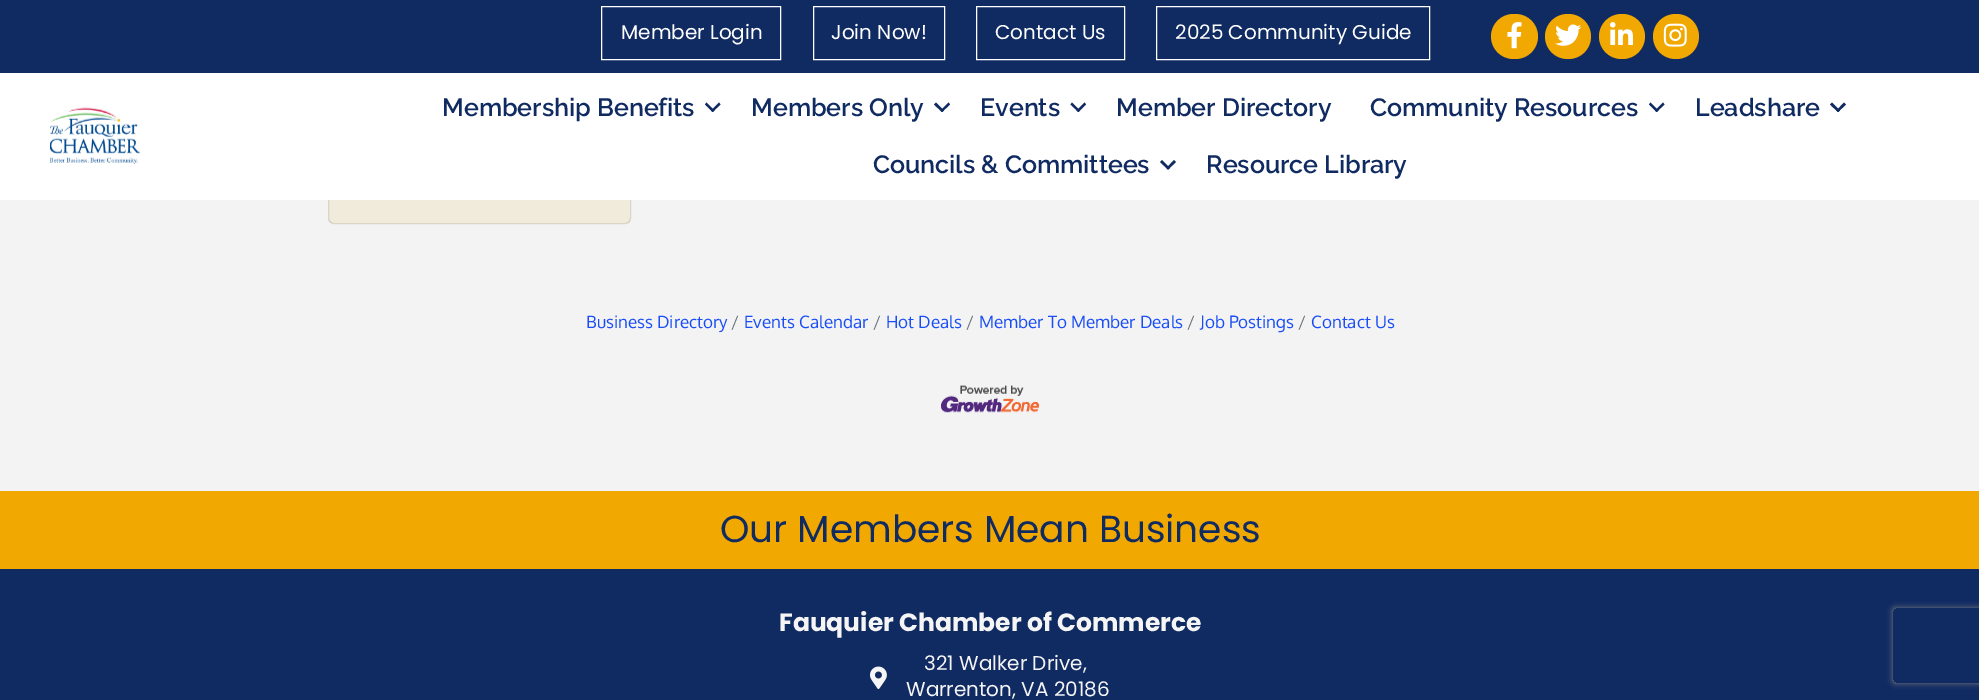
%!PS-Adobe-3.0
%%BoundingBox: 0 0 1979 700
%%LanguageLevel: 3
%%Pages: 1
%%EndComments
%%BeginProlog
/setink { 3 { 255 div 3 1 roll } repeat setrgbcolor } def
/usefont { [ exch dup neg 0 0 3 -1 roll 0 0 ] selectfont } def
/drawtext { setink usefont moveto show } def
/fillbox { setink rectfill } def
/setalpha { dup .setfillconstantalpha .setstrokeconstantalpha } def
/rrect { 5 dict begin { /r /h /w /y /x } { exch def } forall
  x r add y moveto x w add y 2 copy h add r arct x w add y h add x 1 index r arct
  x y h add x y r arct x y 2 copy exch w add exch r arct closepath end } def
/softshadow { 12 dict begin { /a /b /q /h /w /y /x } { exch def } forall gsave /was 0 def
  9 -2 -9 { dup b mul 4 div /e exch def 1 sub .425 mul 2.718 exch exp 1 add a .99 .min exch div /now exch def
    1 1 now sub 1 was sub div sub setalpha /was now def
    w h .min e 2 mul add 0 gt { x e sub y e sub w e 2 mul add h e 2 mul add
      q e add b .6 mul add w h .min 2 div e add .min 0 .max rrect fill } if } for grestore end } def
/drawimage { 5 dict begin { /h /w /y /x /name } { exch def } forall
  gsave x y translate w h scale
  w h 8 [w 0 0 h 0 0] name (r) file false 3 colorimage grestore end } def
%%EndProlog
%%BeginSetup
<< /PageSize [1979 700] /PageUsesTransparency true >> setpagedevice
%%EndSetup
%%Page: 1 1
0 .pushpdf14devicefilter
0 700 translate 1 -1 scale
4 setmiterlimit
0 0 1979 700 243 243 243 fillbox
248 243 226 setink
328 -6 303 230 6 rrect fill
0.12 setalpha
0 0 0 setink
328.5 -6.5 302 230 5.5 rrect stroke
1 setalpha
0 0 1979 73 16 42 98 fillbox
255 255 255 setink
601.5 6.5 179 53 rectstroke
(Member Login) 621 39 /Poppins-Regular 20 255 255 255 drawtext
813.5 6.5 131 53 rectstroke
(Join Now!) 831 39 /Poppins-Regular 20 255 255 255 drawtext
976.5 6.5 148 53 rectstroke
(Contact Us) 995 39 /Poppins-Regular 20 255 255 255 drawtext
1156.5 6.5 273 53 rectstroke
(2025 Community Guide) 1175 39 /Poppins-Regular 20 255 255 255 drawtext
241 168 0 setink
1491 14 47 45 22.5 rrect fill
(assets/img1.rgb) 1507 22 15 27 drawimage
1545 14 46 45 22.5 rrect fill
(assets/img2.rgb) 1555 24 27 22 drawimage
1599 14 46 45 22.5 rrect fill
(assets/img3.rgb) 1610 22 23 23 drawimage
1653 14 46 45 22.5 rrect fill
(assets/img4.rgb) 1663 23 24 24 drawimage
0 73 1979 127 255 255 255 fillbox
(assets/img5.rgb) 50 107 90 57 drawimage
(Membership Benefits) 442 116 /Raleway-SemiBold 25 16 42 98 drawtext
719 102.5 moveto 720.5 104.5 lineto 712.5 112 lineto 711 110.5 lineto closepath fill
706.5 102.5 moveto 714.5 110.5 lineto 712.5 112 lineto 705 104.5 lineto closepath fill
(Members Only) 751 116 /Raleway-SemiBold 25 16 42 98 drawtext
948.5 102.5 moveto 950 104.5 lineto 942 112 lineto 940.5 110.5 lineto closepath fill
936 102.5 moveto 944 110.5 lineto 942 112 lineto 934 104.5 lineto closepath fill
(Events) 980 116 /Raleway-SemiBold 25 16 42 98 drawtext
1084.5 102.5 moveto 1086 104.5 lineto 1078.5 112 lineto 1076.5 110.5 lineto closepath fill
1072 102.5 moveto 1080 110.5 lineto 1078.5 112 lineto 1070.5 104.5 lineto closepath fill
(Member Directory) 1116 116 /Raleway-SemiBold 25 16 42 98 drawtext
(Community Resources) 1370 116 /Raleway-SemiBold 25 16 42 98 drawtext
1663 102.5 moveto 1664.5 104.5 lineto 1656.5 112 lineto 1655 110.5 lineto closepath fill
1650.5 102.5 moveto 1658.5 110.5 lineto 1656.5 112 lineto 1649 104.5 lineto closepath fill
(Leadshare) 1695 116 /Raleway-SemiBold 25 16 42 98 drawtext
1844 102.5 moveto 1846 104.5 lineto 1838 112 lineto 1836.5 110.5 lineto closepath fill
1832 102.5 moveto 1840 110.5 lineto 1838 112 lineto 1830 104.5 lineto closepath fill
(Councils & Committees) 873 173 /Raleway-SemiBold 25 16 42 98 drawtext
1174 160 moveto 1176 162 lineto 1168 169.5 lineto 1166.5 168 lineto closepath fill
1162 160 moveto 1170 168 lineto 1168 169.5 lineto 1160 162 lineto closepath fill
(Resource Library) 1206 173 /Raleway-SemiBold 25 16 42 98 drawtext
0.03 setalpha
329 200 301 23 0 0 0 fillbox
1 setalpha
(Business Directory) 586 328 /Oxygen-Regular 17 25 77 245 drawtext
(/) 731 328 /Oxygen-Regular 17 108 117 125 drawtext
(Events Calendar) 744 328 /Oxygen-Regular 17 25 77 245 drawtext
(/) 873 328 /Oxygen-Regular 17 108 117 125 drawtext
(Hot Deals) 886 328 /Oxygen-Regular 17 25 77 245 drawtext
(/) 966 328 /Oxygen-Regular 17 108 117 125 drawtext
(Member To Member Deals) 979 328 /Oxygen-Regular 17 25 77 245 drawtext
(/) 1187 328 /Oxygen-Regular 17 108 117 125 drawtext
(Job Postings) 1200 328 /Oxygen-Regular 17 25 77 245 drawtext
(/) 1298 328 /Oxygen-Regular 17 108 117 125 drawtext
(Contact Us) 1311 328 /Oxygen-Regular 17 25 77 245 drawtext
(assets/img6.rgb) 941 385 98 28 drawimage
0 491 1979 78 241 168 0 fillbox
(Our Members Mean Business) 720 542 /Poppins-Regular 37.5 16 42 98 drawtext
0 569 1979 131 16 42 98 fillbox
(Fauquier Chamber of Commerce) 779 631 /Poppins-Bold 25 245 245 245 drawtext
(assets/img7.rgb) 870 666 17 23 drawimage
(321 Walker Drive,) 924 670 /Poppins-Regular 20 245 245 245 drawtext
(Warrenton, VA 20186) 906 696 /Poppins-Regular 20 245 245 245 drawtext
gsave
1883 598 moveto 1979 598 lineto 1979 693 lineto 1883 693 lineto closepath 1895.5 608 moveto 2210.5 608 lineto 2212 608 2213 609 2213 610.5 curveto 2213 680.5 lineto 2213 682 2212 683 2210.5 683 curveto 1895.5 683 lineto 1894 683 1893 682 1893 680.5 curveto 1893 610.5 lineto 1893 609 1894 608 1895.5 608 curveto closepath eoclip newpath
128 128 128 setink
1893 608 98 75 2.5 3 1 softshadow
grestore
.poppdf14devicefilter showpage
%%EOF
